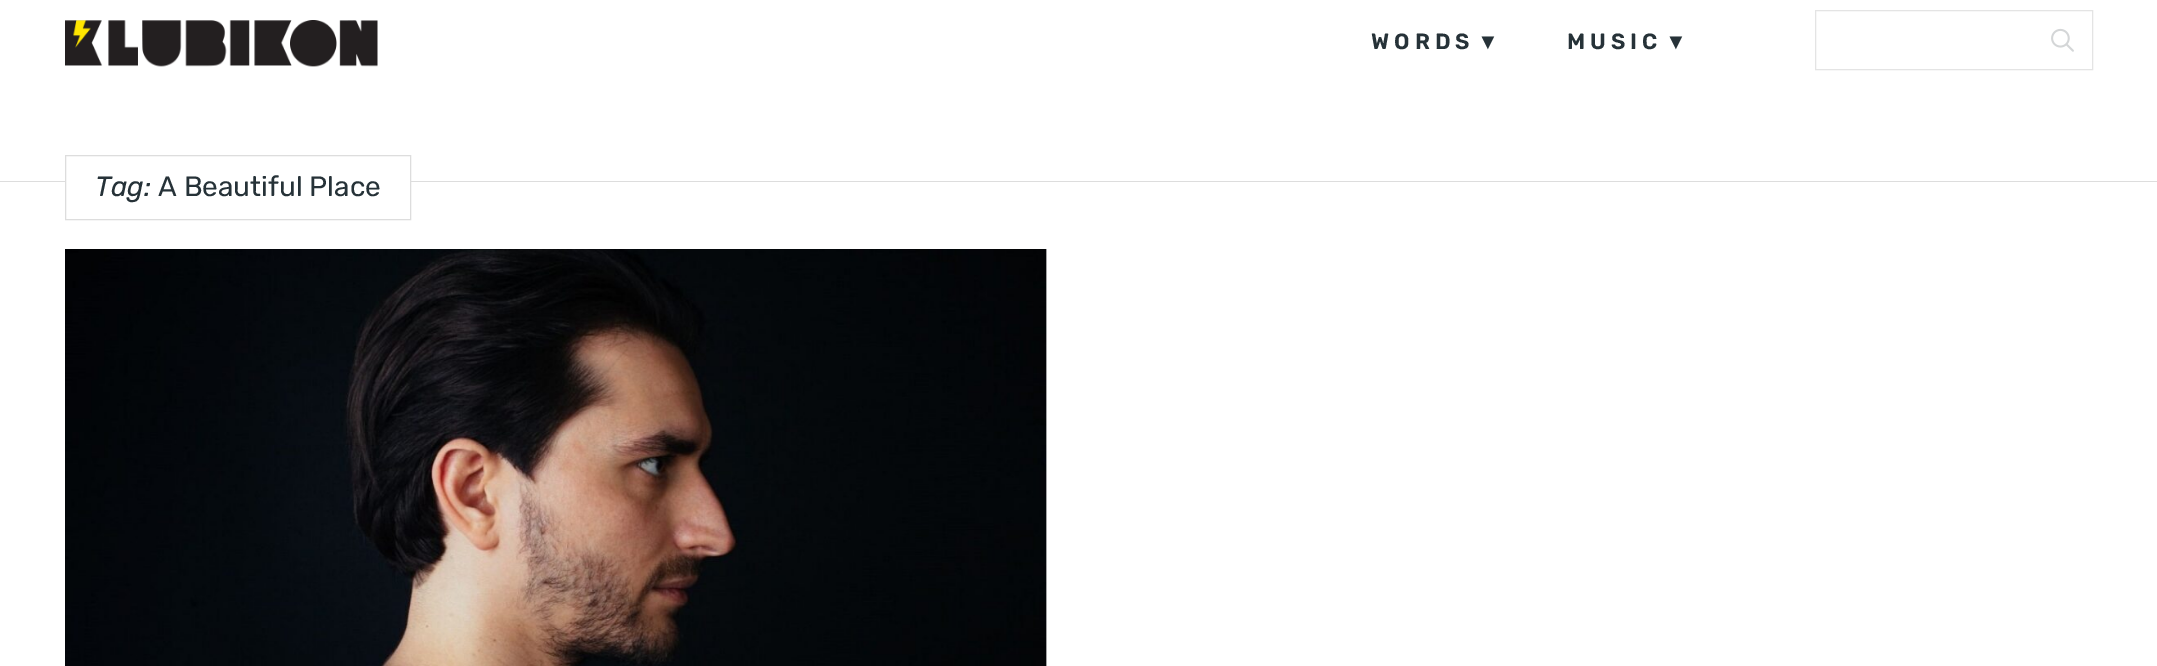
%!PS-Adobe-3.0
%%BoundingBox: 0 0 2157 666
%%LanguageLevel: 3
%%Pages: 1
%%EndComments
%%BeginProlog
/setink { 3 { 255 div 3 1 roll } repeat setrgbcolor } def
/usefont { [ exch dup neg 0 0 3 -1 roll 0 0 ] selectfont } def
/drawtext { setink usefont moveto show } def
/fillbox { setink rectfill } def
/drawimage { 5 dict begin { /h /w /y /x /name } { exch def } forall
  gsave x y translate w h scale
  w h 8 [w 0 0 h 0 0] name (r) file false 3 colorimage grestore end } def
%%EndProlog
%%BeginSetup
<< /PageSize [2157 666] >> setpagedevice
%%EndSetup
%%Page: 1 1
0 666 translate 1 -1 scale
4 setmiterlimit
0 0 2157 666 255 255 255 fillbox
(assets/img1.rgb) 65 20 313 47 drawimage
/Rubik-SemiBold 22 usefont
38 50 56 setink
1371 49 moveto 5 0 (WORDS) ashow
/LiberationSans-Bold 22 usefont
1477 49 moveto 5 0 (▼) ashow
/Rubik-SemiBold 22 usefont
1567 49 moveto 5 0 (MUSIC) ashow
/LiberationSans-Bold 22 usefont
1665 49 moveto 5 0 (▼) ashow
(assets/img2.rgb) 2051 28 23 24 drawimage
228 228 228 setink
1815.5 10.5 277 59 rectstroke
0 181 2157 1 221 221 221 fillbox
66 181 344 1 255 255 255 fillbox
221 221 221 setink
65.5 155.5 345 64 rectstroke
(Tag:) 95 196 /Rubik-Italic 28 38 50 56 drawtext
(A Beautiful Place) 158 196 /Rubik-Regular 28 38 50 56 drawtext
(assets/img3.rgb) 65 249 982 417 drawimage
showpage
%%EOF
